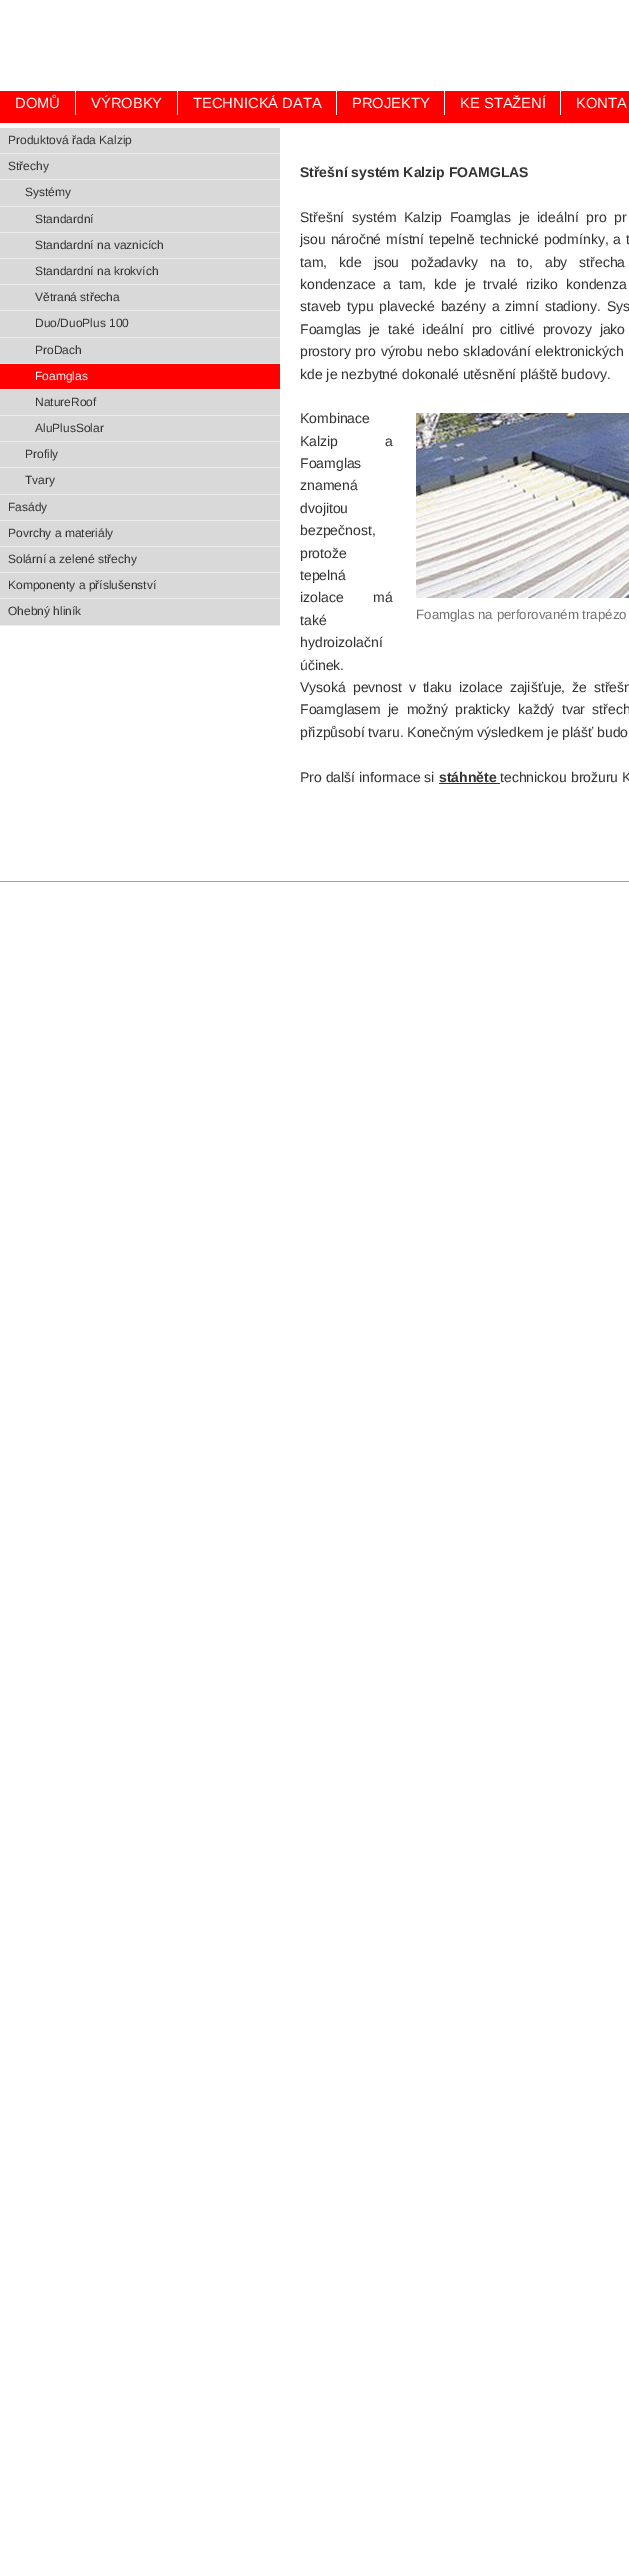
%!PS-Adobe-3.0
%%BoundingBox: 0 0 629 2558
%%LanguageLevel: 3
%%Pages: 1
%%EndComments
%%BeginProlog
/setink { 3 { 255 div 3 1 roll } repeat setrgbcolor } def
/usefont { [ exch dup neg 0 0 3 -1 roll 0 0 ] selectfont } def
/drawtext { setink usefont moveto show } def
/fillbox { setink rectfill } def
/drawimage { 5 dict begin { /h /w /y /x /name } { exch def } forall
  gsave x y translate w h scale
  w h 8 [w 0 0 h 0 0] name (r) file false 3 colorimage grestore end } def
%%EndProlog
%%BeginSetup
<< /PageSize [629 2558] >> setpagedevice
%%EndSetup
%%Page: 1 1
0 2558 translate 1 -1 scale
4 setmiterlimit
0 0 629 2558 255 255 255 fillbox
0 91 629 32 255 0 0 fillbox
(DOMŮ) 15 108 /LiberationSans-Regular 14.75 255 255 255 drawtext
75 91 1 24 255 255 255 fillbox
(VÝROBKY) 91 108 /LiberationSans-Regular 14.75 255 255 255 drawtext
177 91 1 24 255 255 255 fillbox
(TECHNICKÁ DATA) 193 108 /LiberationSans-Regular 14.75 255 255 255 drawtext
336 91 1 24 255 255 255 fillbox
(PROJEKTY) 352 108 /LiberationSans-Regular 14.75 255 255 255 drawtext
444 91 1 24 255 255 255 fillbox
(KE STAŽENÍ) 460 108 /LiberationSans-Regular 14.75 255 255 255 drawtext
560 91 1 24 255 255 255 fillbox
(KONTA) 576 108 /LiberationSans-Regular 14.75 255 255 255 drawtext
0 128 280 25 217 217 217 fillbox
(Produktová řada Kalzip) 8 144 /LiberationSans-Regular 12 51 51 51 drawtext
0 153 280 1 238 238 238 fillbox
0 154 280 25 217 217 217 fillbox
(Střechy) 8 170 /LiberationSans-Regular 12 51 51 51 drawtext
0 179 280 1 238 238 238 fillbox
0 180 280 26 217 217 217 fillbox
(Systémy) 25 196 /LiberationSans-Regular 12 51 51 51 drawtext
0 206 280 1 238 238 238 fillbox
0 207 280 25 217 217 217 fillbox
(Standardní) 35 223 /LiberationSans-Regular 12 51 51 51 drawtext
0 232 280 1 238 238 238 fillbox
0 233 280 25 217 217 217 fillbox
(Standardní na vaznicích) 35 249 /LiberationSans-Regular 12 51 51 51 drawtext
0 258 280 1 238 238 238 fillbox
0 259 280 25 217 217 217 fillbox
(Standardní na krokvích) 35 275 /LiberationSans-Regular 12 51 51 51 drawtext
0 284 280 1 238 238 238 fillbox
0 285 280 25 217 217 217 fillbox
(Větraná střecha) 35 301 /LiberationSans-Regular 12 51 51 51 drawtext
0 310 280 1 238 238 238 fillbox
0 311 280 26 217 217 217 fillbox
(Duo/DuoPlus 100) 35 327 /LiberationSans-Regular 12 51 51 51 drawtext
0 337 280 1 238 238 238 fillbox
0 338 280 25 217 217 217 fillbox
(ProDach) 35 354 /LiberationSans-Regular 12 51 51 51 drawtext
0 363 280 1 238 238 238 fillbox
0 364 280 25 255 0 0 fillbox
(Foamglas) 35 380 /LiberationSans-Regular 12 255 255 255 drawtext
0 389 280 1 238 238 238 fillbox
0 390 280 25 217 217 217 fillbox
(NatureRoof) 35 406 /LiberationSans-Regular 12 51 51 51 drawtext
0 415 280 1 238 238 238 fillbox
0 416 280 25 217 217 217 fillbox
(AluPlusSolar) 35 432 /LiberationSans-Regular 12 51 51 51 drawtext
0 441 280 1 238 238 238 fillbox
0 442 280 25 217 217 217 fillbox
(Profily) 25 458 /LiberationSans-Regular 12 51 51 51 drawtext
0 467 280 1 238 238 238 fillbox
0 468 280 26 217 217 217 fillbox
(Tvary) 25 484 /LiberationSans-Regular 12 51 51 51 drawtext
0 494 280 1 238 238 238 fillbox
0 495 280 25 217 217 217 fillbox
(Fasády) 8 511 /LiberationSans-Regular 12 51 51 51 drawtext
0 520 280 1 238 238 238 fillbox
0 521 280 25 217 217 217 fillbox
(Povrchy a materiály) 8 537 /LiberationSans-Regular 12 51 51 51 drawtext
0 546 280 1 238 238 238 fillbox
0 547 280 25 217 217 217 fillbox
(Solární a zelené střechy) 8 563 /LiberationSans-Regular 12 51 51 51 drawtext
0 572 280 1 238 238 238 fillbox
0 573 280 25 217 217 217 fillbox
(Komponenty a příslušenství) 8 589 /LiberationSans-Regular 12 51 51 51 drawtext
0 598 280 1 238 238 238 fillbox
0 599 280 26 217 217 217 fillbox
(Ohebný hliník) 8 615 /LiberationSans-Regular 12 51 51 51 drawtext
0 625 280 1 238 238 238 fillbox
(Střešní systém Kalzip FOAMGLAS) 300 177 /LiberationSans-Bold 14 51 51 51 drawtext
/LiberationSans-Regular 14 usefont
300 222 moveto 3.75 0 32 (Střešní systém Kalzip Foamglas je ideální pro pr) widthshow
300 244 moveto 1 0 32 (jsou náročné místní tepelně technické podmínky, a t) widthshow
300 267 moveto 8 0 32 (tam, kde jsou požadavky na to, aby střecha) widthshow
300 289 moveto 4 0 32 (kondenzace a tam, kde je trvalé riziko kondenza) widthshow
300 311 moveto 2 0 32 (staveb typu plavecké bazény a zimní stadiony. Sys) widthshow
300 334 moveto 4 0 32 (Foamglas je také ideální pro citlivé provozy jako) widthshow
300 356 moveto 1 0 32 (prostory pro výrobu nebo skladování elektronických) widthshow
(kde je nezbytné dokonalé utěsnění pláště budovy.) 300 379 /LiberationSans-Regular 14 51 51 51 drawtext
(Kombinace) 300 423 /LiberationSans-Regular 14 51 51 51 drawtext
300 446 moveto 43 0 32 (Kalzip a) widthshow
(Foamglas) 300 468 /LiberationSans-Regular 14 51 51 51 drawtext
(znamená) 300 490 /LiberationSans-Regular 14 51 51 51 drawtext
(dvojitou) 300 513 /LiberationSans-Regular 14 51 51 51 drawtext
(bezpečnost,) 300 535 /LiberationSans-Regular 14 51 51 51 drawtext
(protože) 300 558 /LiberationSans-Regular 14 51 51 51 drawtext
(tepelná) 300 580 /LiberationSans-Regular 14 51 51 51 drawtext
300 602 moveto 26 0 32 (izolace má) widthshow
(také) 300 625 /LiberationSans-Regular 14 51 51 51 drawtext
(hydroizolační) 300 647 /LiberationSans-Regular 14 51 51 51 drawtext
(účinek.) 300 670 /LiberationSans-Regular 14 51 51 51 drawtext
300 692 moveto 3 0 32 (Vysoká pevnost v tlaku izolace zajišťuje, že střešn) widthshow
300 714 moveto 3.5 0 32 (Foamglasem je možný prakticky každý tvar střech) widthshow
(přizpůsobí tvaru. Konečným výsledkem je plášť budo) 300 737 /LiberationSans-Regular 14 51 51 51 drawtext
(assets/img1.rgb) 416 413 213 185 drawimage
(Foamglas na perforovaném trapézo) 416 619 /LiberationSans-Regular 13.3 112 112 112 drawtext
(Pro další informace si) 300 782 /LiberationSans-Regular 14 51 51 51 drawtext
(stáhněte) 439 782 /LiberationSans-Bold 14 51 51 51 drawtext
439 783 61 1 51 51 51 fillbox
(technickou brožuru K) 500 782 /LiberationSans-Regular 14 51 51 51 drawtext
0 881 629 1 163 163 163 fillbox
showpage
%%EOF
